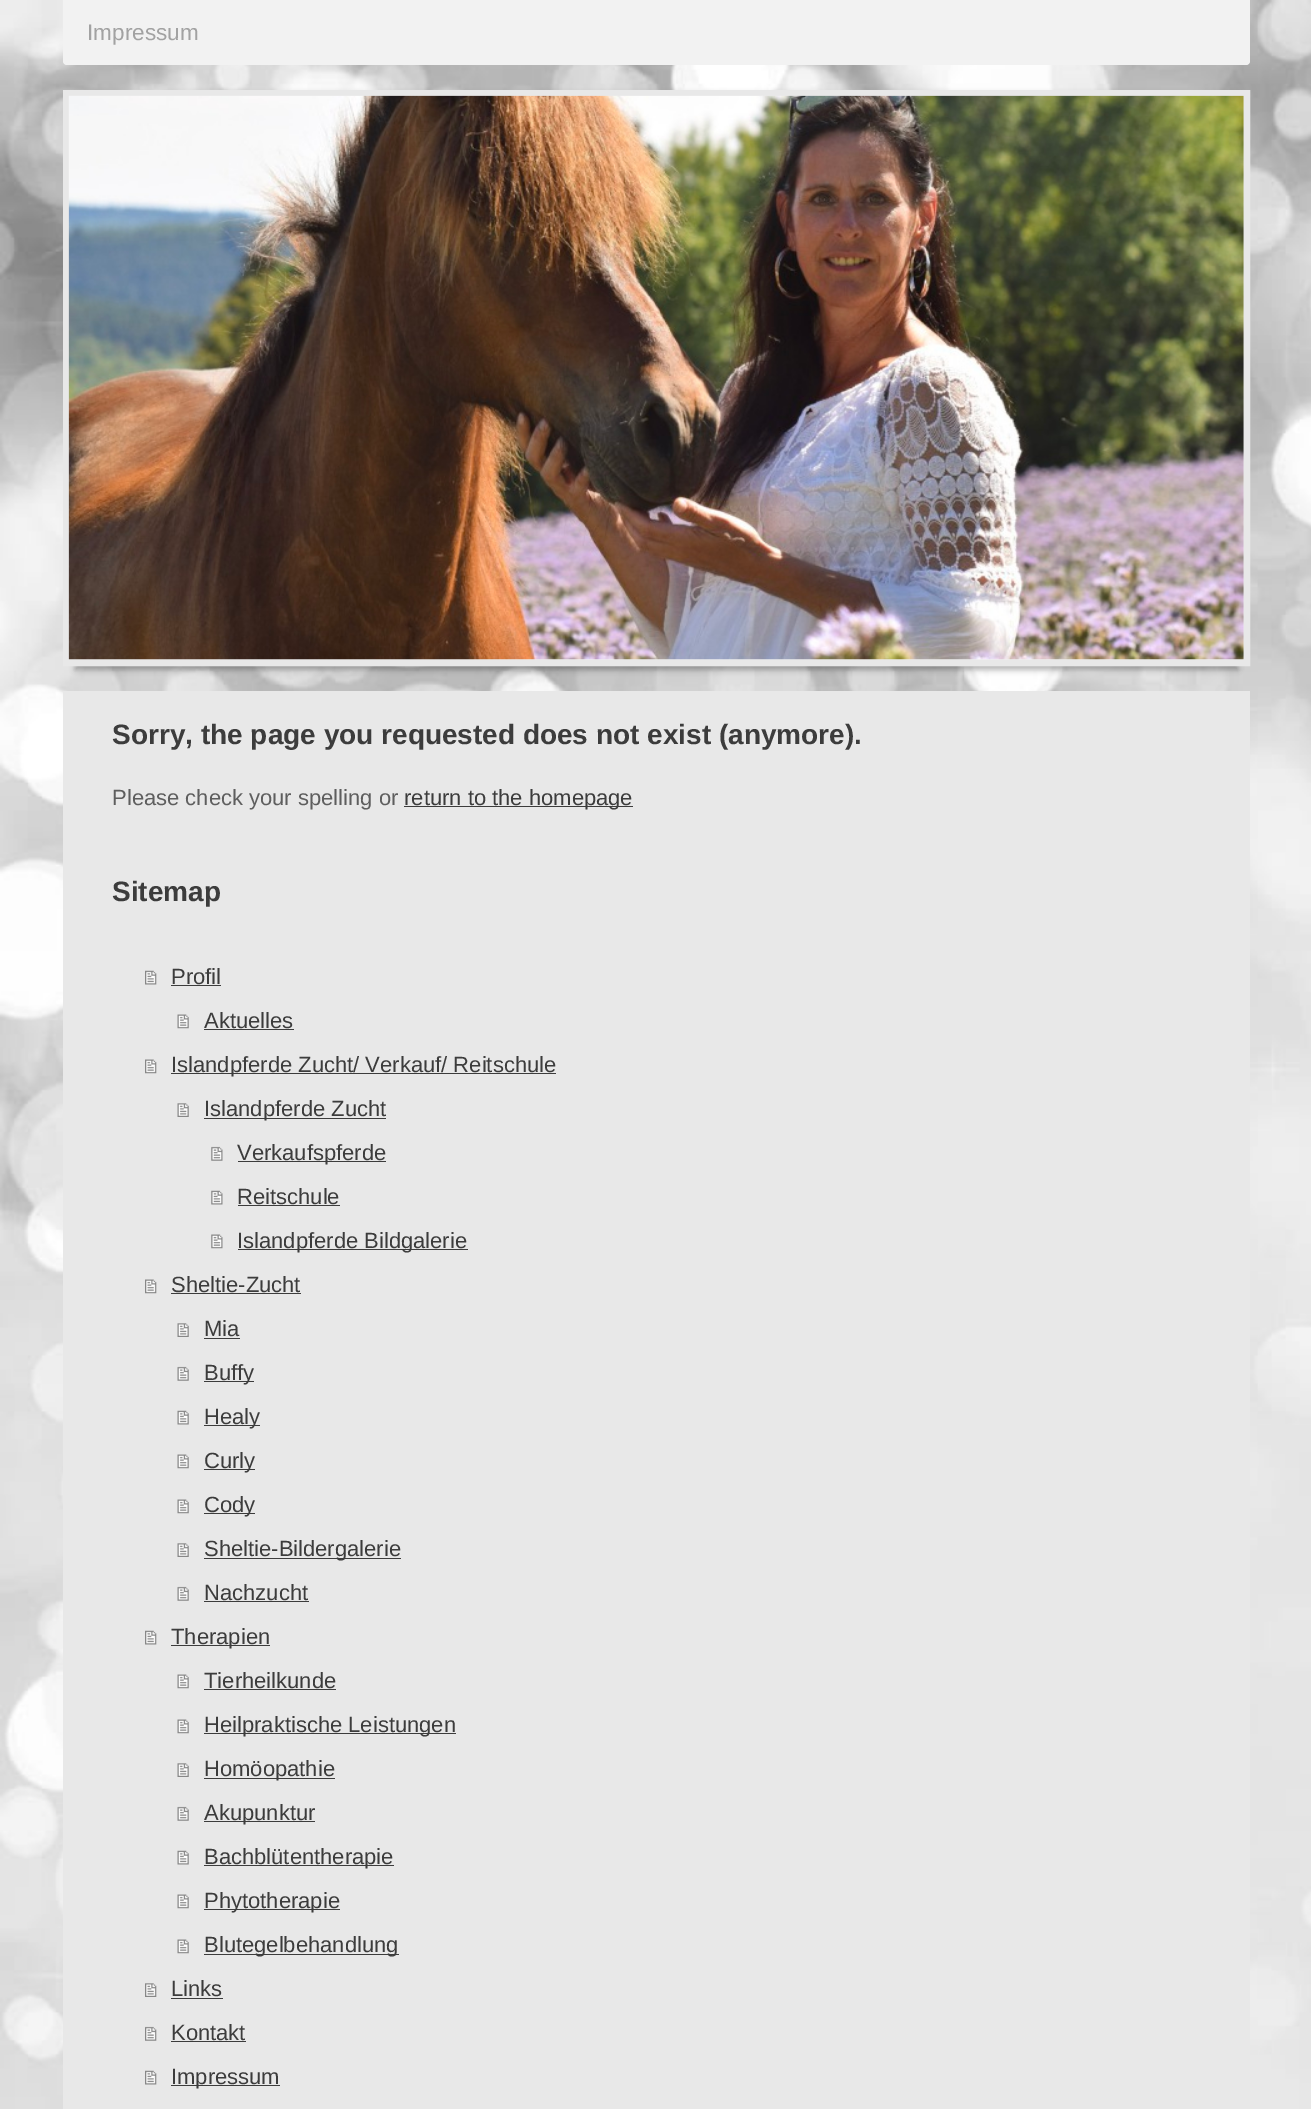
%!PS-Adobe-3.0
%%BoundingBox: 0 0 1311 2109
%%LanguageLevel: 3
%%Pages: 1
%%EndComments
%%BeginProlog
/setink { 3 { 255 div 3 1 roll } repeat setrgbcolor } def
/usefont { [ exch dup neg 0 0 3 -1 roll 0 0 ] selectfont } def
/drawtext { setink usefont moveto show } def
/fillbox { setink rectfill } def
/setalpha { dup .setfillconstantalpha .setstrokeconstantalpha } def
/rrect { 5 dict begin { /r /h /w /y /x } { exch def } forall
  x r add y moveto x w add y 2 copy h add r arct x w add y h add x 1 index r arct
  x y h add x y r arct x y 2 copy exch w add exch r arct closepath end } def
/softshadow { 12 dict begin { /a /b /q /h /w /y /x } { exch def } forall gsave /was 0 def
  9 -2 -9 { dup b mul 4 div /e exch def 1 sub .425 mul 2.718 exch exp 1 add a .99 .min exch div /now exch def
    1 1 now sub 1 was sub div sub setalpha /was now def
    w h .min e 2 mul add 0 gt { x e sub y e sub w e 2 mul add h e 2 mul add
      q e add b .6 mul add w h .min 2 div e add .min 0 .max rrect fill } if } for grestore end } def
/drawimage { 5 dict begin { /h /w /y /x /name } { exch def } forall
  gsave x y translate w h scale
  w h 8 [w 0 0 h 0 0] name (r) file false 3 colorimage grestore end } def
%%EndProlog
%%BeginSetup
<< /PageSize [1311 2109] /PageUsesTransparency true >> setpagedevice
%%EndSetup
%%Page: 1 1
0 .pushpdf14devicefilter
0 2109 translate 1 -1 scale
4 setmiterlimit
0 0 1311 2109 255 255 255 fillbox
(assets/img1.rgb) 0 0 1311 2109 drawimage
242 242 242 setink
63 -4 1187 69 4 rrect fill
(Impressum) 87 40 /LiberationSans-Regular 22.5 162 162 162 drawtext
0 0 0 setink
75 94 1163 576 0 3 0.3 softshadow
232 232 232 setink
6 setlinewidth
66 93 1181 570 rectstroke
(assets/img2.rgb) 68 95 1176 564 drawimage
69 96 1175 564 238 238 238 fillbox
(assets/img3.rgb) 68 95 1176 565 drawimage
63 691 1187 1418 232 232 232 fillbox
(Sorry, the page you requested does not exist \(anymore\).) 112 744 /LiberationSans-Bold 28 60 60 60 drawtext
(Please check your spelling or) 112 805 /LiberationSans-Regular 22 94 94 94 drawtext
404 806 229 1 60 60 60 fillbox
(return to the homepage) 404 805 /LiberationSans-Regular 22 60 60 60 drawtext
(Sitemap) 112 901 /LiberationSans-Bold 28 60 60 60 drawtext
(assets/img4.rgb) 145 970 12 15 drawimage
(Profil) 171 984 /LiberationSans-Regular 22 60 60 60 drawtext
171 985 50 1 60 60 60 fillbox
(assets/img5.rgb) 177 1014 12 15 drawimage
(Aktuelles) 204 1028 /LiberationSans-Regular 22 60 60 60 drawtext
204 1029 90 1 60 60 60 fillbox
(assets/img6.rgb) 145 1059 12 15 drawimage
171 1073 385 1 60 60 60 fillbox
(Islandpferde Zucht/ Verkauf/ Reitschule) 171 1072 /LiberationSans-Regular 22 60 60 60 drawtext
(assets/img7.rgb) 177 1103 12 14 drawimage
204 1118 182 1 60 60 60 fillbox
(Islandpferde Zucht) 204 1116 /LiberationSans-Regular 22 60 60 60 drawtext
(assets/img8.rgb) 211 1146 12 15 drawimage
238 1161 148 1 60 60 60 fillbox
(Verkaufspferde) 237 1160 /LiberationSans-Regular 22 60 60 60 drawtext
(assets/img9.rgb) 211 1190 12 15 drawimage
(Reitschule) 237 1204 /LiberationSans-Regular 22 60 60 60 drawtext
238 1205 102 1 60 60 60 fillbox
(assets/img10.rgb) 211 1234 12 15 drawimage
238 1249 230 1 60 60 60 fillbox
(Islandpferde Bildgalerie) 237 1248 /LiberationSans-Regular 22 60 60 60 drawtext
(assets/img6.rgb) 145 1279 12 15 drawimage
(Sheltie-Zucht) 171 1292 /LiberationSans-Regular 22 60 60 60 drawtext
171 1293 130 1 60 60 60 fillbox
(assets/img7.rgb) 177 1323 12 14 drawimage
(Mia) 204 1336 /LiberationSans-Regular 22 60 60 60 drawtext
204 1338 36 1 60 60 60 fillbox
(assets/img11.rgb) 177 1366 12 15 drawimage
204 1381 50 1 60 60 60 fillbox
(Buffy) 204 1380 /LiberationSans-Regular 22 60 60 60 drawtext
(assets/img12.rgb) 177 1410 12 15 drawimage
204 1425 56 1 60 60 60 fillbox
(Healy) 204 1424 /LiberationSans-Regular 22 60 60 60 drawtext
(assets/img13.rgb) 177 1454 12 15 drawimage
204 1469 51 1 60 60 60 fillbox
(Curly) 204 1468 /LiberationSans-Regular 22 60 60 60 drawtext
(assets/img5.rgb) 177 1499 12 15 drawimage
204 1513 51 1 60 60 60 fillbox
(Cody) 204 1512 /LiberationSans-Regular 22 60 60 60 drawtext
(assets/img7.rgb) 177 1543 12 14 drawimage
204 1558 197 1 60 60 60 fillbox
(Sheltie-Bildergalerie) 204 1556 /LiberationSans-Regular 22 60 60 60 drawtext
(assets/img11.rgb) 177 1586 12 15 drawimage
(Nachzucht) 204 1600 /LiberationSans-Regular 22 60 60 60 drawtext
204 1601 105 1 60 60 60 fillbox
(assets/img4.rgb) 145 1630 12 15 drawimage
171 1645 99 1 60 60 60 fillbox
(Therapien) 171 1644 /LiberationSans-Regular 22 60 60 60 drawtext
(assets/img5.rgb) 177 1674 12 15 drawimage
(Tierheilkunde) 204 1688 /LiberationSans-Regular 22 60 60 60 drawtext
204 1689 132 1 60 60 60 fillbox
(assets/img5.rgb) 177 1719 12 15 drawimage
204 1733 252 1 60 60 60 fillbox
(Heilpraktische Leistungen) 204 1732 /LiberationSans-Regular 22 60 60 60 drawtext
(assets/img7.rgb) 177 1763 12 14 drawimage
204 1778 131 1 60 60 60 fillbox
(Homöopathie) 204 1776 /LiberationSans-Regular 22 60 60 60 drawtext
(assets/img11.rgb) 177 1806 12 15 drawimage
204 1821 111 1 60 60 60 fillbox
(Akupunktur) 204 1820 /LiberationSans-Regular 22 60 60 60 drawtext
(assets/img12.rgb) 177 1850 12 15 drawimage
204 1865 190 1 60 60 60 fillbox
(Bachblütentherapie) 204 1864 /LiberationSans-Regular 22 60 60 60 drawtext
(assets/img5.rgb) 177 1894 12 15 drawimage
204 1909 136 1 60 60 60 fillbox
(Phytotherapie) 204 1908 /LiberationSans-Regular 22 60 60 60 drawtext
(assets/img5.rgb) 177 1939 12 15 drawimage
204 1954 195 1 60 60 60 fillbox
(Blutegelbehandlung) 204 1952 /LiberationSans-Regular 22 60 60 60 drawtext
(assets/img14.rgb) 145 1983 12 14 drawimage
(Links) 171 1996 /LiberationSans-Regular 22 60 60 60 drawtext
171 1998 52 1 60 60 60 fillbox
(assets/img15.rgb) 145 2026 12 15 drawimage
(Kontakt) 171 2040 /LiberationSans-Regular 22 60 60 60 drawtext
171 2041 75 1 60 60 60 fillbox
(assets/img4.rgb) 145 2070 12 15 drawimage
171 2085 109 1 60 60 60 fillbox
(Impressum) 171 2084 /LiberationSans-Regular 22 60 60 60 drawtext
.poppdf14devicefilter showpage
%%EOF
